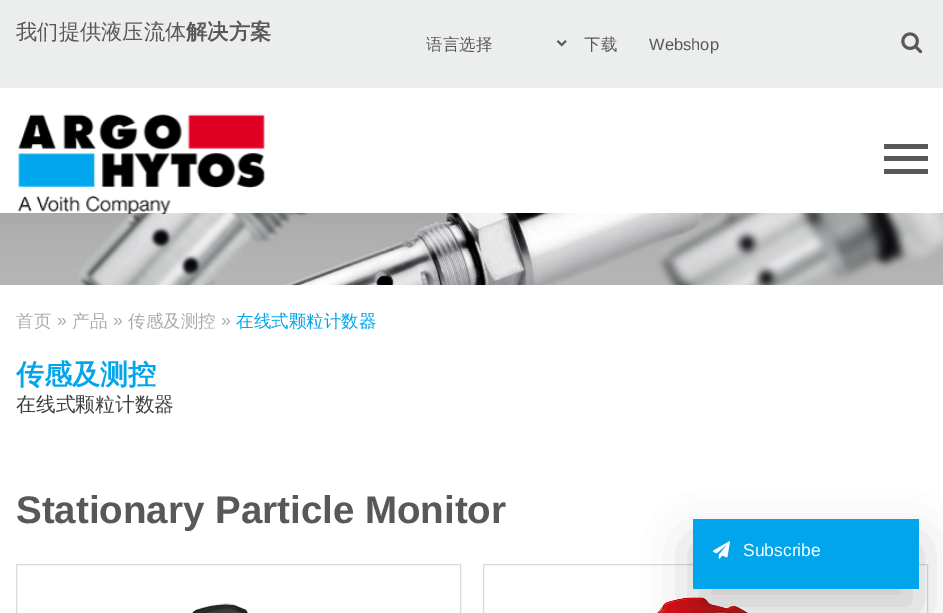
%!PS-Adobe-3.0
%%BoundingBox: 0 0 943 613
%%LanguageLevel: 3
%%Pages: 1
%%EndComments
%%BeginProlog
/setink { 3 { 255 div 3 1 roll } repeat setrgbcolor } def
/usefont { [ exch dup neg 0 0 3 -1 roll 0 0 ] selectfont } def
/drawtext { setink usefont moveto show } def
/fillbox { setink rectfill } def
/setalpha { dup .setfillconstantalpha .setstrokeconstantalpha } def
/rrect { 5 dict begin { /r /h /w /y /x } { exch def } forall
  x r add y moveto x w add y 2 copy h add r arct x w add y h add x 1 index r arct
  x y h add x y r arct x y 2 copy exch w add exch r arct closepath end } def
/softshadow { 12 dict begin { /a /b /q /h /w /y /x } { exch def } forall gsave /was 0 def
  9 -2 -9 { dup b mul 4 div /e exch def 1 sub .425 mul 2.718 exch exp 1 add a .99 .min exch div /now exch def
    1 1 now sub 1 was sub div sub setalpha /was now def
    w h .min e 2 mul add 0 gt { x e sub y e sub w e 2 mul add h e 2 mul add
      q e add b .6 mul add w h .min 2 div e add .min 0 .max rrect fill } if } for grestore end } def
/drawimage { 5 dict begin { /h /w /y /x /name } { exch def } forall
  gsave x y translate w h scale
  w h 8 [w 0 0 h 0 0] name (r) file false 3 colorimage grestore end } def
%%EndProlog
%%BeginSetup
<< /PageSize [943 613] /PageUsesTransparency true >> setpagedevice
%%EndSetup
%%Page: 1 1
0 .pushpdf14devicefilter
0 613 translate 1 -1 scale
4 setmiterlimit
0 0 943 613 255 255 255 fillbox
0 0 943 88 236 237 237 fillbox
(我们提供液压流体) 16 39 /WenQuanYiZenHei-Medium 21.25 88 88 90 drawtext
(解决方案) 186 39 /WenQuanYiZenHei-Bold 21.25 88 88 90 drawtext
(语言选择) 426 50 /WenQuanYiZenHei-Medium 16.5 88 88 90 drawtext
(assets/img1.rgb) 556 40 11 7 drawimage
(下载) 584 50 /WenQuanYiZenHei-Medium 16.5 88 88 90 drawtext
(Webshop) 649 50 /LiberationSans-Regular 16.5 88 88 90 drawtext
(assets/img2.rgb) 901 32 22 22 drawimage
(assets/img4.rgb) 0 213 943 72 drawimage
(assets/img3.rgb) 18 114 247 101 drawimage
884 144 44 5 88 88 90 fillbox
884 156 44 5 88 88 90 fillbox
884 169 44 5 88 88 90 fillbox
(首页) 16 327 /WenQuanYiZenHei-Medium 17.5 170 170 170 drawtext
(») 57 326 /LiberationSans-Regular 17.5 170 170 170 drawtext
(产品) 72 327 /WenQuanYiZenHei-Medium 17.5 170 170 170 drawtext
(») 113 326 /LiberationSans-Regular 17.5 170 170 170 drawtext
(传感及测控) 128 327 /WenQuanYiZenHei-Medium 17.5 170 170 170 drawtext
(») 221 326 /LiberationSans-Regular 17.5 170 170 170 drawtext
(在线式颗粒计数器) 236 327 /WenQuanYiZenHei-Medium 17.5 0 165 235 drawtext
(传感及测控) 16 384 /WenQuanYiZenHei-Bold 28 0 165 235 drawtext
(在线式颗粒计数器) 16 411 /WenQuanYiZenHei-Medium 19.75 62 61 64 drawtext
(Stationary Particle Monitor) 16 523 /LiberationSans-Bold 38.5 88 88 90 drawtext
217 218 219 setink
16.5 564.5 444 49 rectstroke
(assets/img5.rgb) 192 603 56 10 drawimage
483.5 564.5 444 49 rectstroke
(assets/img6.rgb) 657 597 91 16 drawimage
0 0 0 setink
693 543 226 70 0 24 0.2 softshadow
693 519 226 70 0 165 235 fillbox
(assets/img7.rgb) 713 541 17 18 drawimage
(Subscribe) 743 556 /LiberationSans-Regular 17.5 255 255 255 drawtext
.poppdf14devicefilter showpage
%%EOF
